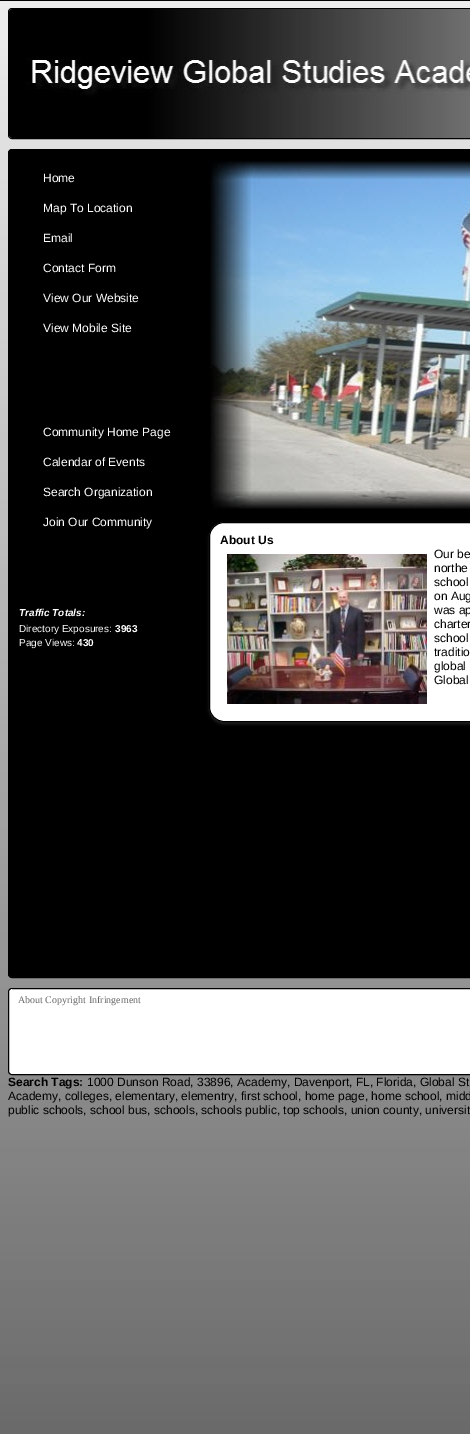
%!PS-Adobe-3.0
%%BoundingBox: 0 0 470 1434
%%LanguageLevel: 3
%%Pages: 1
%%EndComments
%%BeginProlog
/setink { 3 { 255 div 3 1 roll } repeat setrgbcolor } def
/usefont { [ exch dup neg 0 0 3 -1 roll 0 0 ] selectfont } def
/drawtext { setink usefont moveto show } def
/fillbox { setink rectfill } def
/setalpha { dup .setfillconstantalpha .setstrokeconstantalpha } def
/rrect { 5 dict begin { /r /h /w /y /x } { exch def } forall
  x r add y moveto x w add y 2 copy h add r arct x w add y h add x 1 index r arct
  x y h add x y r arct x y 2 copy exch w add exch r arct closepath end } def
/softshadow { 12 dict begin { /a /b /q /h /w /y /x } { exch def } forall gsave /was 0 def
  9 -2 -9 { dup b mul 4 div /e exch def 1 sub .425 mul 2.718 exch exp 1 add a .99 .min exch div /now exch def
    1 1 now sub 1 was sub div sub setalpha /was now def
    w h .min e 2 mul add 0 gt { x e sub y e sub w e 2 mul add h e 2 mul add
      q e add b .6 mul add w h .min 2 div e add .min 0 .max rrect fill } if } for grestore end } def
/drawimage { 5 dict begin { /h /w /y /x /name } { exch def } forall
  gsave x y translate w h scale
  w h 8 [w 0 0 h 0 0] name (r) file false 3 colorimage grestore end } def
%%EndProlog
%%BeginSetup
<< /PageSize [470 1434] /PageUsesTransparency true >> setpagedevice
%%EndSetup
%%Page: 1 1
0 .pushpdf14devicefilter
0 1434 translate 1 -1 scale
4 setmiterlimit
0 0 470 1434 255 255 255 fillbox
(assets/img1.rgb) 0 0 470 1434 drawimage
0 0 0 setink
8.5 8.5 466 130 3.5 rrect stroke
(assets/img2.rgb) 9 9 461 129 drawimage
8.5 149.5 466 828 3.5 rrect gsave fill grestore
stroke
(Home) 43 182 /LiberationSans-Regular 12 255 255 255 drawtext
(Map To Location) 43 212 /LiberationSans-Regular 12 255 255 255 drawtext
(Email) 43 242 /LiberationSans-Regular 12 255 255 255 drawtext
(Contact Form) 43 272 /LiberationSans-Regular 12 255 255 255 drawtext
(View Our Website) 43 302 /LiberationSans-Regular 12 255 255 255 drawtext
(View Mobile Site) 43 332 /LiberationSans-Regular 12 255 255 255 drawtext
(Community Home Page) 43 436 /LiberationSans-Regular 12 255 255 255 drawtext
(Calendar of Events) 43 466 /LiberationSans-Regular 12 255 255 255 drawtext
(Search Organization) 43 496 /LiberationSans-Regular 12 255 255 255 drawtext
(Join Our Community) 43 526 /LiberationSans-Regular 12 255 255 255 drawtext
(Traffic Totals:) 19 616 /LiberationSans-BoldItalic 10 255 255 255 drawtext
(Directory Exposures:) 19 632 /LiberationSans-Regular 10 255 255 255 drawtext
(3963) 115 632 /LiberationSans-Bold 10 255 255 255 drawtext
(Page Views:) 19 646 /LiberationSans-Regular 10 255 255 255 drawtext
(430) 77 646 /LiberationSans-Bold 10 255 255 255 drawtext
(assets/img3.rgb) 209 160 261 349 drawimage
34 34 34 setink
209 524 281 200 15 1.5 1 softshadow
255 255 255 setink
209.5 522.5 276 199 14.5 rrect gsave fill grestore
0 0 0 setink
stroke
(About Us) 220 544 /LiberationSans-Bold 12 0 0 0 drawtext
(assets/img4.rgb) 227 554 200 150 drawimage
(Our be) 434 558 /LiberationSans-Regular 12 0 0 0 drawtext
(northe) 434 572 /LiberationSans-Regular 12 0 0 0 drawtext
(school) 434 586 /LiberationSans-Regular 12 0 0 0 drawtext
(on Aug) 434 600 /LiberationSans-Regular 12 0 0 0 drawtext
(was ap) 434 614 /LiberationSans-Regular 12 0 0 0 drawtext
(charter) 434 628 /LiberationSans-Regular 12 0 0 0 drawtext
(school) 434 642 /LiberationSans-Regular 12 0 0 0 drawtext
(traditio) 434 656 /LiberationSans-Regular 12 0 0 0 drawtext
(global) 434 670 /LiberationSans-Regular 12 0 0 0 drawtext
(Global) 434 684 /LiberationSans-Regular 12 0 0 0 drawtext
255 255 255 setink
8.5 988.5 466 86 3.5 rrect gsave fill grestore
0 0 0 setink
stroke
11 989 1 85 255 255 255 fillbox
(About Copyright Infringement) 18 1003 /LiberationSerif-Regular 10 102 102 102 drawtext
(Search Tags:) 8 1086 /LiberationSans-Bold 12 0 0 0 drawtext
(1000 Dunson Road, 33896, Academy, Davenport, FL, Florida, Global St) 87 1086 /LiberationSans-Regular 12 0 0 0 drawtext
(Academy, colleges, elementary, elementry, first school, home page, home school, midd) 8 1100 /LiberationSans-Regular 12 0 0 0 drawtext
(public schools, school bus, schools, schools public, top schools, union county, universit) 8 1114 /LiberationSans-Regular 12 0 0 0 drawtext
.poppdf14devicefilter showpage
%%EOF
